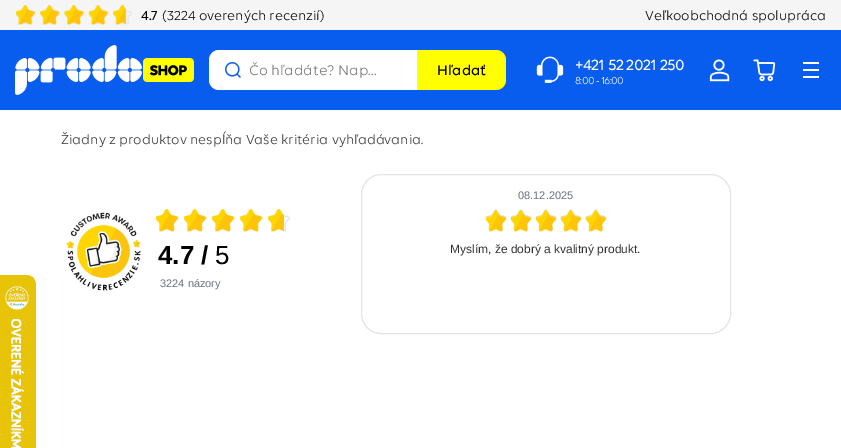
%!PS-Adobe-3.0
%%BoundingBox: 0 0 841 448
%%LanguageLevel: 3
%%Pages: 1
%%EndComments
%%BeginProlog
/setink { 3 { 255 div 3 1 roll } repeat setrgbcolor } def
/usefont { [ exch dup neg 0 0 3 -1 roll 0 0 ] selectfont } def
/drawtext { setink usefont moveto show } def
/fillbox { setink rectfill } def
/rrect { 5 dict begin { /r /h /w /y /x } { exch def } forall
  x r add y moveto x w add y 2 copy h add r arct x w add y h add x 1 index r arct
  x y h add x y r arct x y 2 copy exch w add exch r arct closepath end } def
/drawimage { 5 dict begin { /h /w /y /x /name } { exch def } forall
  gsave x y translate w h scale
  w h 8 [w 0 0 h 0 0] name (r) file false 3 colorimage grestore end } def
%%EndProlog
%%BeginSetup
<< /PageSize [841 448] >> setpagedevice
%%EndSetup
%%Page: 1 1
0 448 translate 1 -1 scale
4 setmiterlimit
0 0 841 448 255 255 255 fillbox
0 0 841 30 245 245 245 fillbox
(assets/img2.rgb) 16 5 116 20 drawimage
(assets/img1.rgb) 15 5 111 20 drawimage
(4.7) 141 20 /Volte-Medium 14 0 0 0 drawtext
(\(3224 overených recenzií\)) 162 20 /Volte-Regular 14 0 0 0 drawtext
(Veľkoobchodná spolupráca) 645 20 /Volte-Regular 14 0 0 0 drawtext
0 30 841 80 8 93 238 fillbox
(assets/img3.rgb) 15 45 179 50 drawimage
255 255 255 setink
219 50 moveto 417 50 lineto 417 90 lineto 219 90 lineto 213.5 90 209 85.5 209 80 curveto 209 60 lineto 209 54.5 213.5 50 219 50 curveto closepath fill
(assets/img4.rgb) 225 62 16 16 drawimage
(Čo hľadáte? Nap…) 249 75 /Volte-Regular 15 117 117 117 drawtext
255 255 0 setink
417 50 moveto 496 50 lineto 501.5 50 506 54.5 506 60 curveto 506 80 lineto 506 85.5 501.5 90 496 90 curveto 417 90 lineto closepath fill
(Hľadať) 437 75 /Volte-Medium 15 0 0 0 drawtext
(assets/img5.rgb) 536 56 28 27 drawimage
/Volte-Medium 16 usefont
255 255 255 setink
575 70 moveto -0.6 0 (+421 52 2021 250) ashow
/Volte-Regular 11 usefont
575 84 moveto -0.6 0 (8:00 - 16:00) ashow
(assets/img6.rgb) 709 59 21 23 drawimage
(assets/img7.rgb) 753 59 23 23 drawimage
803 62 16 2 255 255 255 fillbox
803 69 16 2 255 255 255 fillbox
803 76 16 2 255 255 255 fillbox
(Žiadny z produktov nespĺňa Vaše kritéria vyhľadávania.) 61 144 /Volte-Regular 14 51 51 51 drawtext
228 228 228 setink
361.5 174.5 369 159 19.5 rrect stroke
(08.12.2025) 518 199 /LiberationSans-Regular 11 109 112 127 drawtext
(assets/img8.rgb) 485 209 122 21 drawimage
(assets/img9.rgb) 486 210 121 22 drawimage
(Myslím, že dobrý a kvalitný produkt.) 450 253 /LiberationSans-Regular 12 51 51 51 drawtext
(assets/img10.rgb) 66 212 75 79 drawimage
(assets/img11.rgb) 156 209 135 23 drawimage
(assets/img12.rgb) 156 209 128 23 drawimage
(4.7 /) 158 264 /LiberationSans-Bold 26 0 0 0 drawtext
(5) 215 264 /LiberationSans-Regular 26 0 0 0 drawtext
(3224 názory) 160 287 /LiberationSans-Regular 11 109 112 127 drawtext
(assets/img13.rgb) 0 275 36 173 drawimage
showpage
%%EOF
